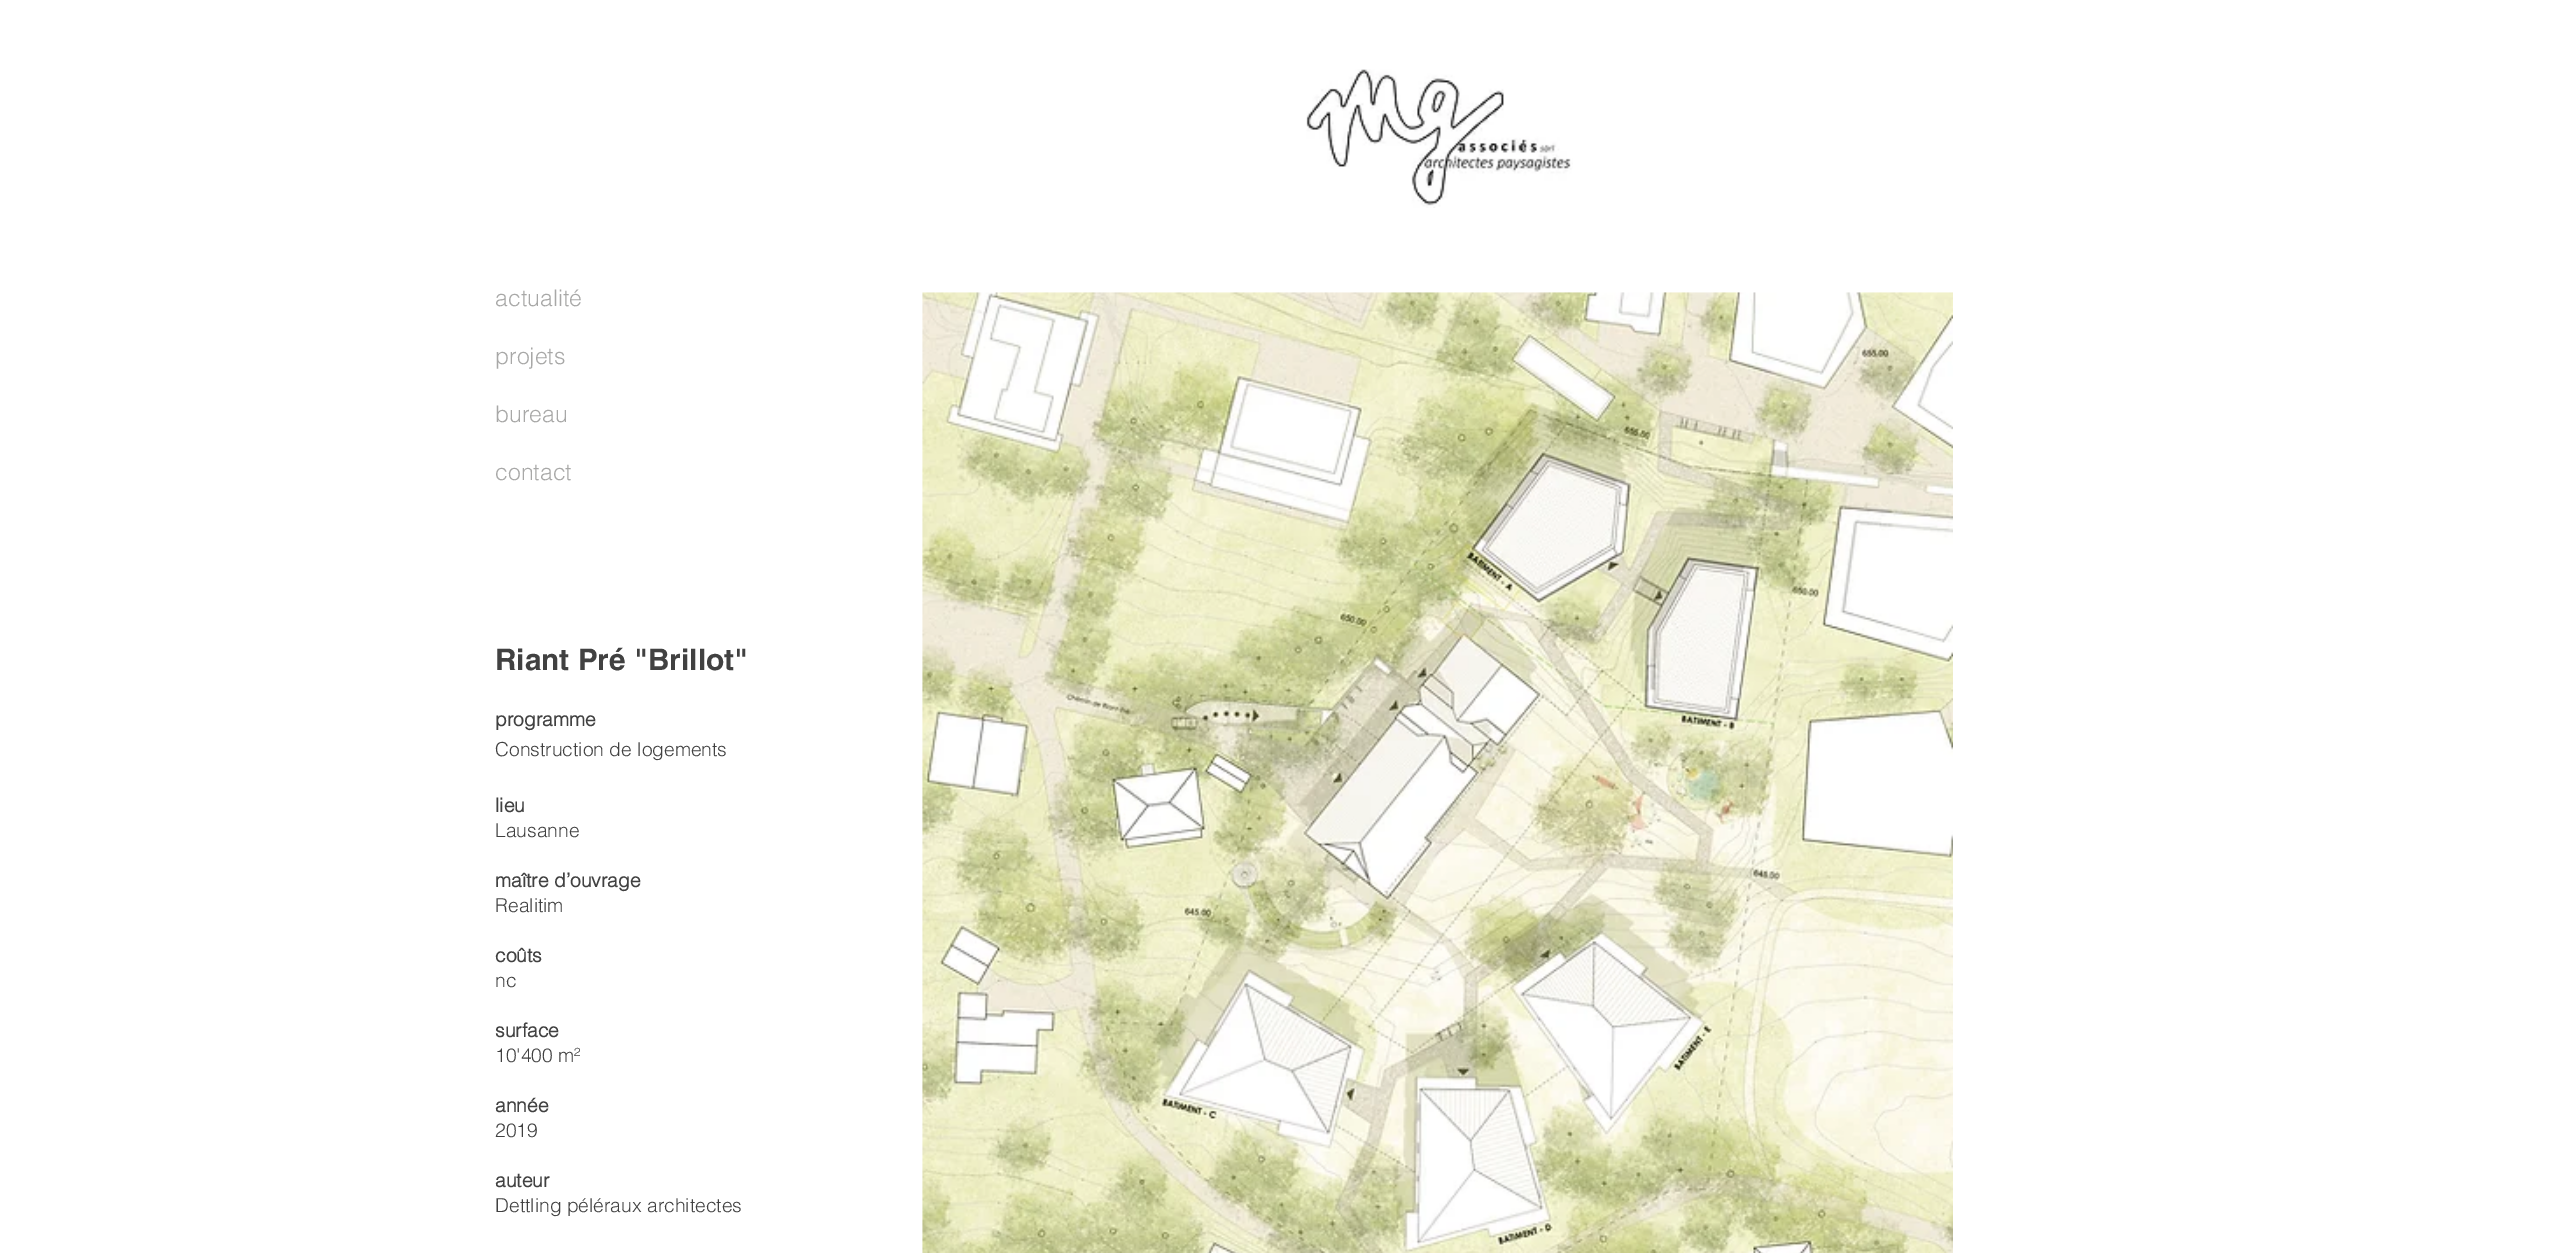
%!PS-Adobe-3.0
%%BoundingBox: 0 0 2564 1253
%%LanguageLevel: 3
%%Pages: 1
%%EndComments
%%BeginProlog
/setink { 3 { 255 div 3 1 roll } repeat setrgbcolor } def
/usefont { [ exch dup neg 0 0 3 -1 roll 0 0 ] selectfont } def
/drawtext { setink usefont moveto show } def
/fillbox { setink rectfill } def
/drawimage { 5 dict begin { /h /w /y /x /name } { exch def } forall
  gsave x y translate w h scale
  w h 8 [w 0 0 h 0 0] name (r) file false 3 colorimage grestore end } def
%%EndProlog
%%BeginSetup
<< /PageSize [2564 1253] >> setpagedevice
%%EndSetup
%%Page: 1 1
0 1253 translate 1 -1 scale
4 setmiterlimit
0 0 2564 1253 255 255 255 fillbox
(assets/img1.rgb) 1306 69 267 139 drawimage
(actualité) 495 306 /helvetica-Light 23 168 168 167 drawtext
(projets) 495 364 /helvetica-Light 23 168 168 167 drawtext
(bureau) 495 422 /helvetica-Light 23 168 168 167 drawtext
(contact) 495 480 /helvetica-Light 23 168 168 167 drawtext
(Riant Pré "Brillot") 495 670 /helvetica-Bold 29.75 65 65 65 drawtext
(programme) 495 726 /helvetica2-Bold 19.25 65 65 65 drawtext
(Construction de logements) 495 756 /helvetica-Light 19.25 65 65 65 drawtext
(lieu) 495 812 /helvetica2-Bold 19.25 65 65 65 drawtext
(Lausanne) 495 837 /helvetica-Light 19.25 65 65 65 drawtext
(maître d’ouvrage) 495 887 /helvetica2-Bold 19.25 65 65 65 drawtext
(Realitim) 495 912 /helvetica-Light 19.25 65 65 65 drawtext
(coûts) 495 962 /helvetica2-Bold 19.25 65 65 65 drawtext
(nc) 495 987 /helvetica-Light 19.25 65 65 65 drawtext
(surface) 495 1037 /helvetica2-Bold 19.25 65 65 65 drawtext
(10'400 m²) 495 1062 /helvetica-Light 19.25 65 65 65 drawtext
(année) 495 1112 /helvetica2-Bold 19.25 65 65 65 drawtext
(2019) 495 1137 /helvetica-Light 19.25 65 65 65 drawtext
(auteur) 495 1187 /helvetica2-Bold 19.25 65 65 65 drawtext
(Dettling péléraux architectes) 495 1212 /helvetica-Light 19.25 65 65 65 drawtext
(assets/img2.rgb) 922 292 1031 961 drawimage
showpage
%%EOF
